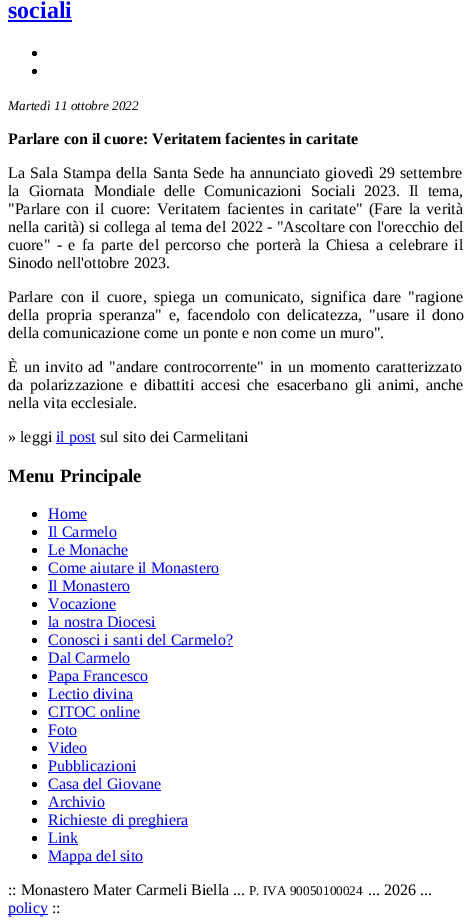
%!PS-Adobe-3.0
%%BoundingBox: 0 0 471 921
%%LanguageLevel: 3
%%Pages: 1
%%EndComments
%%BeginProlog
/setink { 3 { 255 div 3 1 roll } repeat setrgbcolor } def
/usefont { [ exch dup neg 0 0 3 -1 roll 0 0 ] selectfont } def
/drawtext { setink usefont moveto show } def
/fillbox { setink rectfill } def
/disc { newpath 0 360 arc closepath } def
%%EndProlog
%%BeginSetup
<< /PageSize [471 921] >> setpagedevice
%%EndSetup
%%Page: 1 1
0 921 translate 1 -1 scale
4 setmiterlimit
0 0 471 921 255 255 255 fillbox
(sociali) 8 18 /LiberationSerif-Bold 24 0 0 238 drawtext
8 20 64 2 0 0 238 fillbox
0 0 0 setink
34.5 53.5 2.5 disc fill
34.5 71.5 2.5 disc fill
(Martedì 11 ottobre 2022) 8 110 /LiberationSerif-Italic 13.25 0 0 0 drawtext
(Parlare con il cuore: Veritatem facientes in caritate) 8 144 /LiberationSerif-Bold 16 0 0 0 drawtext
/LiberationSerif-Regular 16 usefont
8 178 moveto 1.25 0 32 (La Sala Stampa della Santa Sede ha annunciato giovedì 29 settembre) widthshow
8 196 moveto 5 0 32 (la Giornata Mondiale delle Comunicazioni Sociali 2023. Il tema,) widthshow
8 214 moveto 2.25 0 32 ("Parlare con il cuore: Veritatem facientes in caritate" \(Fare la verità) widthshow
8 232 moveto 0.5 0 32 (nella carità\) si collega al tema del 2022 - "Ascoltare con l'orecchio del) widthshow
8 250 moveto 2.5 0 32 (cuore" - e fa parte del percorso che porterà la Chiesa a celebrare il) widthshow
(Sinodo nell'ottobre 2023.) 8 268 /LiberationSerif-Regular 16 0 0 0 drawtext
8 302 moveto 3.25 0 32 (Parlare con il cuore, spiega un comunicato, significa dare "ragione) widthshow
8 320 moveto 3 0 32 (della propria speranza" e, facendolo con delicatezza, "usare il dono) widthshow
(della comunicazione come un ponte e non come un muro".) 8 338 /LiberationSerif-Regular 16 0 0 0 drawtext
8 372 moveto 1.75 0 32 (È un invito ad "andare controcorrente" in un momento caratterizzato) widthshow
8 390 moveto 3 0 32 (da polarizzazione e dibattiti accesi che esacerbano gli animi, anche) widthshow
(nella vita ecclesiale.) 8 408 /LiberationSerif-Regular 16 0 0 0 drawtext
(» leggi) 8 442 /LiberationSerif-Regular 16 0 0 0 drawtext
56 443 40 1 0 0 238 fillbox
(il post) 56 442 /LiberationSerif-Regular 16 0 0 238 drawtext
(sul sito dei Carmelitani) 100 442 /LiberationSerif-Regular 16 0 0 0 drawtext
(Menu Principale) 8 482 /LiberationSerif-Bold 18.75 0 0 0 drawtext
34.5 514.5 2.5 disc fill
(Home) 48 519 /LiberationSerif-Regular 16 0 0 238 drawtext
48 520 39 1 0 0 238 fillbox
0 0 0 setink
34.5 532.5 2.5 disc fill
(Il Carmelo) 48 537 /LiberationSerif-Regular 16 0 0 238 drawtext
48 538 69 1 0 0 238 fillbox
0 0 0 setink
34.5 550.5 2.5 disc fill
(Le Monache) 48 555 /LiberationSerif-Regular 16 0 0 238 drawtext
48 556 80 1 0 0 238 fillbox
0 0 0 setink
34.5 568.5 2.5 disc fill
(Come aiutare il Monastero) 48 573 /LiberationSerif-Regular 16 0 0 238 drawtext
48 574 171 1 0 0 238 fillbox
0 0 0 setink
34.5 586.5 2.5 disc fill
(Il Monastero) 48 591 /LiberationSerif-Regular 16 0 0 238 drawtext
48 592 82 1 0 0 238 fillbox
0 0 0 setink
34.5 604.5 2.5 disc fill
(Vocazione) 48 609 /LiberationSerif-Regular 16 0 0 238 drawtext
48 610 68 1 0 0 238 fillbox
0 0 0 setink
34.5 622.5 2.5 disc fill
(la nostra Diocesi) 48 627 /LiberationSerif-Regular 16 0 0 238 drawtext
48 628 108 1 0 0 238 fillbox
0 0 0 setink
34.5 640.5 2.5 disc fill
(Conosci i santi del Carmelo?) 48 645 /LiberationSerif-Regular 16 0 0 238 drawtext
48 646 185 1 0 0 238 fillbox
0 0 0 setink
34.5 658.5 2.5 disc fill
(Dal Carmelo) 48 663 /LiberationSerif-Regular 16 0 0 238 drawtext
48 664 82 1 0 0 238 fillbox
0 0 0 setink
34.5 676.5 2.5 disc fill
48 682 100 1 0 0 238 fillbox
(Papa Francesco) 48 681 /LiberationSerif-Regular 16 0 0 238 drawtext
0 0 0 setink
34.5 694.5 2.5 disc fill
(Lectio divina) 48 699 /LiberationSerif-Regular 16 0 0 238 drawtext
48 700 85 1 0 0 238 fillbox
0 0 0 setink
34.5 712.5 2.5 disc fill
(CITOC online) 48 717 /LiberationSerif-Regular 16 0 0 238 drawtext
48 718 92 1 0 0 238 fillbox
0 0 0 setink
34.5 730.5 2.5 disc fill
(Foto) 48 735 /LiberationSerif-Regular 16 0 0 238 drawtext
48 736 29 1 0 0 238 fillbox
0 0 0 setink
34.5 748.5 2.5 disc fill
(Video) 48 753 /LiberationSerif-Regular 16 0 0 238 drawtext
48 754 39 1 0 0 238 fillbox
0 0 0 setink
34.5 766.5 2.5 disc fill
(Pubblicazioni) 48 771 /LiberationSerif-Regular 16 0 0 238 drawtext
48 772 88 1 0 0 238 fillbox
0 0 0 setink
34.5 784.5 2.5 disc fill
(Casa del Giovane) 48 789 /LiberationSerif-Regular 16 0 0 238 drawtext
48 790 113 1 0 0 238 fillbox
0 0 0 setink
34.5 802.5 2.5 disc fill
(Archivio) 48 807 /LiberationSerif-Regular 16 0 0 238 drawtext
48 808 57 1 0 0 238 fillbox
0 0 0 setink
34.5 820.5 2.5 disc fill
48 826 140 1 0 0 238 fillbox
(Richieste di preghiera) 48 825 /LiberationSerif-Regular 16 0 0 238 drawtext
0 0 0 setink
34.5 838.5 2.5 disc fill
(Link) 48 843 /LiberationSerif-Regular 16 0 0 238 drawtext
48 844 30 1 0 0 238 fillbox
0 0 0 setink
34.5 856.5 2.5 disc fill
48 862 95 1 0 0 238 fillbox
(Mappa del sito) 48 861 /LiberationSerif-Regular 16 0 0 238 drawtext
(:: Monastero Mater Carmeli Biella ...) 8 895 /LiberationSerif-Regular 16 0 0 0 drawtext
(P. IVA 90050100024) 249 895 /LiberationSerif-Regular 13.25 0 0 0 drawtext
(... 2026 ...) 368 895 /LiberationSerif-Regular 16 0 0 0 drawtext
8 914 40 1 0 0 238 fillbox
(policy) 8 913 /LiberationSerif-Regular 16 0 0 238 drawtext
(::) 52 913 /LiberationSerif-Regular 16 0 0 0 drawtext
showpage
%%EOF
